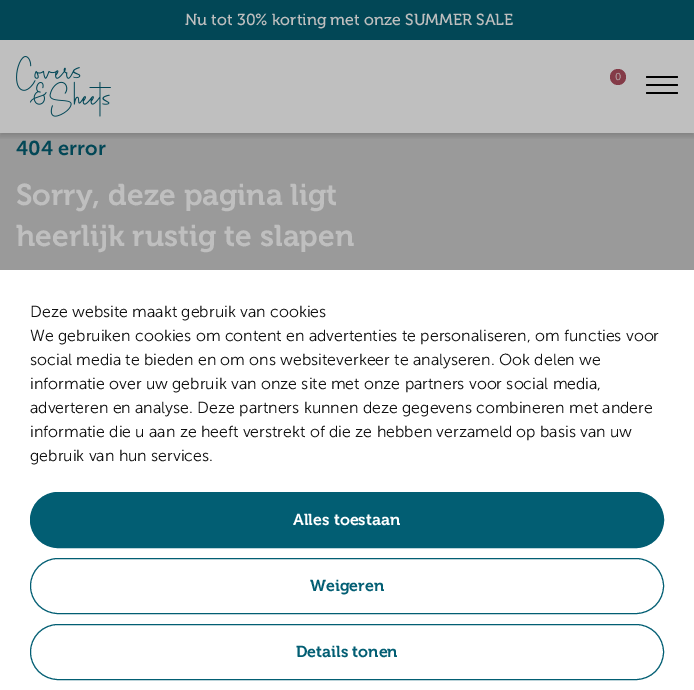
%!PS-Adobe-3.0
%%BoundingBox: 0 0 694 690
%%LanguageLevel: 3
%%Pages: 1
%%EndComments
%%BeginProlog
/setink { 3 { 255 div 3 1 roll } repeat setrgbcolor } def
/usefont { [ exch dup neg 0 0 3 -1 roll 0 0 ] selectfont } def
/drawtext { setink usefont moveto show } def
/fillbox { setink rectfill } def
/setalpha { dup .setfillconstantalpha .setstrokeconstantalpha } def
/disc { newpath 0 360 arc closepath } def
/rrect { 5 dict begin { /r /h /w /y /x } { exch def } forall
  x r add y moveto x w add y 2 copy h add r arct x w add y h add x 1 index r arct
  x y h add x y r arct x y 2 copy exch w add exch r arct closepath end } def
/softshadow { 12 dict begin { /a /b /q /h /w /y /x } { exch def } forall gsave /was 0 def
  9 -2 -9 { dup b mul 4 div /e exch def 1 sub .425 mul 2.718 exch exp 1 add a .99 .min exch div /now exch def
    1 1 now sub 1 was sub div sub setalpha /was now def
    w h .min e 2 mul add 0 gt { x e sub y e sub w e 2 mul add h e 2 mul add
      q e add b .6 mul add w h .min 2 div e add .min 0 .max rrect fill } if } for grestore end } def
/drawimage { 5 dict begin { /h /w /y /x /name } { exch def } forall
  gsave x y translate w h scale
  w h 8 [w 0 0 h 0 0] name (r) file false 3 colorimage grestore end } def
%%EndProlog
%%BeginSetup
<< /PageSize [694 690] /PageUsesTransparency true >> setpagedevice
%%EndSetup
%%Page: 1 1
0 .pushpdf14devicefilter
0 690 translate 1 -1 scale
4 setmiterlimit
0 0 694 690 191 191 191 fillbox
0 0 694 40 2 71 86 fillbox
(Nu tot 30% korting met onze SUMMER SALE) 185 25 /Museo-Regular 16 191 191 191 drawtext
0 133 694 137 154 154 154 fillbox
gsave
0 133 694 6 rectclip
0 0 0 setink
0 43 694 93 0 3 0.16 softshadow
grestore
(assets/img1.rgb) 16 56 95 61 drawimage
132 59 72 setink
618 77 8 disc fill
(0) 615 80 /MuseoSans-Light 10 191 191 191 drawtext
0 0 0 setink
646 84 32 2 1 rrect fill
646 76 32 2 1 rrect fill
646 92 32 2 1 rrect fill
(404 error) 16 155 /MuseoSans-SemiBold 20 2 71 86 drawtext
(Sorry, deze pagina ligt) 16 205 /Museo-SemiBold 30 191 191 191 drawtext
(heerlijk rustig te slapen) 16 246 /Museo-SemiBold 30 191 191 191 drawtext
0 270 694 420 255 255 255 fillbox
(Deze website maakt gebruik van cookies) 30 317 /MuseoSans-Light 16 15 15 15 drawtext
(We gebruiken cookies om content en advertenties te personaliseren, om functies voor) 30 341 /MuseoSans-Light 16 15 15 15 drawtext
(social media te bieden en om ons websiteverkeer te analyseren. Ook delen we) 30 365 /MuseoSans-Light 16 15 15 15 drawtext
(informatie over uw gebruik van onze site met onze partners voor social media,) 30 389 /MuseoSans-Light 16 15 15 15 drawtext
(adverteren en analyse. Deze partners kunnen deze gegevens combineren met andere) 30 413 /MuseoSans-Light 16 15 15 15 drawtext
(informatie die u aan ze heeft verstrekt of die ze hebben verzameld op basis van uw) 30 437 /MuseoSans-Light 16 15 15 15 drawtext
(gebruik van hun services.) 30 461 /MuseoSans-Light 16 15 15 15 drawtext
2 94 115 setink
30.5 492.5 633 55 27.5 rrect gsave fill grestore
stroke
(Alles toestaan) 293 525 /Museo-SemiBold 16 255 255 255 drawtext
2 94 115 setink
30.5 558.5 633 55 27.5 rrect stroke
(Weigeren) 310 591 /Museo-SemiBold 16 2 94 115 drawtext
30.5 624.5 633 55 27.5 rrect stroke
(Details tonen) 296 657 /Museo-SemiBold 16 2 94 115 drawtext
.poppdf14devicefilter showpage
%%EOF
